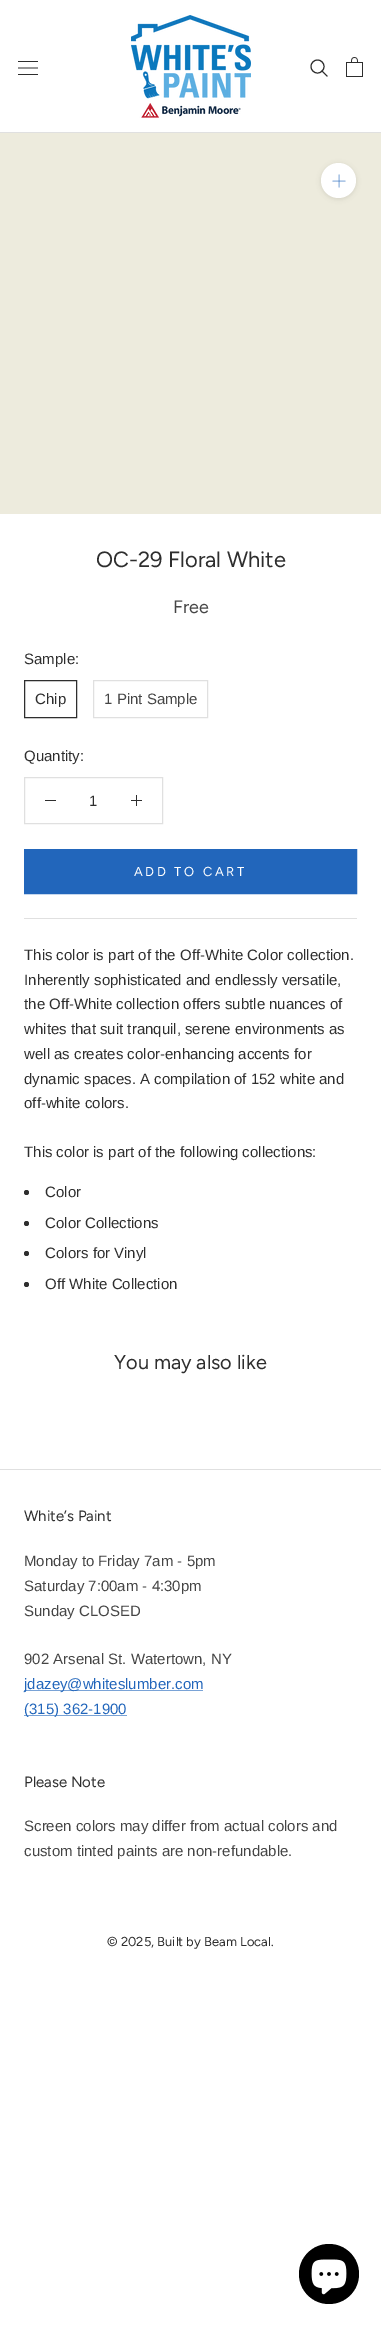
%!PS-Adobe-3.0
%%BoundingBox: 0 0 381 2325
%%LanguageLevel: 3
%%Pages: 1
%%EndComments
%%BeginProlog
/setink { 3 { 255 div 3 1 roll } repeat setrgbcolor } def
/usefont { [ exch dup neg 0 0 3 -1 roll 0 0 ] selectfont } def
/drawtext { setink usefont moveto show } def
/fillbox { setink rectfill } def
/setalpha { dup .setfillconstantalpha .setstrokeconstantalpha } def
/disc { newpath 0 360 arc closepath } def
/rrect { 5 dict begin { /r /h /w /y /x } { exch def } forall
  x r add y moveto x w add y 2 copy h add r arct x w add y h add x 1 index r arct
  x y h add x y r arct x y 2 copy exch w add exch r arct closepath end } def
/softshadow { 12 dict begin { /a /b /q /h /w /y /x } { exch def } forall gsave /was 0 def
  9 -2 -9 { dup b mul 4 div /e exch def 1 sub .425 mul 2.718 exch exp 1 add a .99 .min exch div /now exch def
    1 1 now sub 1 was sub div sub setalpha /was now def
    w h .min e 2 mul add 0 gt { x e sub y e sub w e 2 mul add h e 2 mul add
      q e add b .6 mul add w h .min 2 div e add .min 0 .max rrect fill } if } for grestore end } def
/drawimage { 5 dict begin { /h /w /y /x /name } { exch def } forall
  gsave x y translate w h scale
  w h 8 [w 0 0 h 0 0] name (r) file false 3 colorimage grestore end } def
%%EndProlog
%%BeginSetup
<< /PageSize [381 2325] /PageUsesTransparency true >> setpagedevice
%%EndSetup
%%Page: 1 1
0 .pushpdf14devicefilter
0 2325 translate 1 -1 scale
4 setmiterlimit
0 0 381 2325 255 255 255 fillbox
0 132 381 1 224 224 224 fillbox
(assets/img1.rgb) 18 61 20 14 drawimage
(assets/img2.rgb) 131 15 120 103 drawimage
46 46 46 setink
2 setlinecap
327 76 moveto 322 71 lineto stroke
0 setlinecap
317.5 66.5 6.5 disc stroke
(assets/img3.rgb) 346 57 17 20 drawimage
0 133 381 381 237 235 221 fillbox
54 54 54 setink
321 164 35 35 17.5 2.5 0.15 softshadow
255 255 255 setink
338.5 180.5 17.5 disc fill
145 179 221 setink
0.9 setlinewidth
2 setlinecap
339 175 moveto 339 187 lineto stroke
0.5 setalpha
34 102 187 setink
333 181 moveto 345 181 lineto stroke
1 setalpha
(OC-29 Floral White) 96 567 /Figtree-Regular 22 46 46 46 drawtext
(Free) 173 613 /Figtree-Regular 18 69 69 69 drawtext
(Sample:) 24 664 /LiberationSans-Regular 15 46 46 46 drawtext
1 setlinewidth
0 setlinecap
24.5 680.5 52 37 rectstroke
(Chip) 35 704 /LiberationSans-Regular 15 46 46 46 drawtext
224 224 224 setink
93.5 680.5 114 37 rectstroke
(1 Pint Sample) 104 704 /LiberationSans-Regular 15 69 69 69 drawtext
(Quantity:) 24 761 /LiberationSans-Regular 15 46 46 46 drawtext
224 224 224 setink
24.5 777.5 138 46 rectstroke
45 800 11 1 46 46 46 fillbox
(1) 89 806 /LiberationSans-Regular 15 46 46 46 drawtext
136 795 1 11 46 46 46 fillbox
131 800 11 1 46 46 46 fillbox
34 102 187 setink
24.5 849.5 332 44 rectstroke
25 850 331 43 34 102 187 fillbox
/Figtree-Regular 13 usefont
255 255 255 setink
134 876 moveto 2.6 0 (ADD TO CART) ashow
24 918 333 1 224 224 224 fillbox
(This color is part of the Off-White Color collection.) 24 960 /LiberationSans-Regular 15 46 46 46 drawtext
(Inherently sophisticated and endlessly versatile,) 24 985 /LiberationSans-Regular 15 46 46 46 drawtext
(the Off-White collection offers subtle nuances of) 24 1009 /LiberationSans-Regular 15 46 46 46 drawtext
(whites that suit tranquil, serene environments as) 24 1034 /LiberationSans-Regular 15 46 46 46 drawtext
(well as creates color-enhancing accents for) 24 1059 /LiberationSans-Regular 15 46 46 46 drawtext
(dynamic spaces. A compilation of 152 white and) 24 1084 /LiberationSans-Regular 15 46 46 46 drawtext
(off-white colors.) 24 1108 /LiberationSans-Regular 15 46 46 46 drawtext
(This color is part of the following collections:) 24 1157 /LiberationSans-Regular 15 46 46 46 drawtext
26.5 1192.5 2.5 disc fill
(Color) 45 1197 /LiberationSans-Regular 15 46 46 46 drawtext
26.5 1223.5 2.5 disc fill
(Color Collections) 45 1228 /LiberationSans-Regular 15 46 46 46 drawtext
26.5 1253.5 2.5 disc fill
(Colors for Vinyl) 45 1258 /LiberationSans-Regular 15 46 46 46 drawtext
26.5 1284.5 2.5 disc fill
(Off White Collection) 45 1289 /LiberationSans-Regular 15 46 46 46 drawtext
(You may also like) 114 1369 /Figtree-Regular 20 46 46 46 drawtext
0 1469 381 1 224 224 224 fillbox
(White’s Paint) 24 1521 /Figtree-Regular 15 46 46 46 drawtext
(Monday to Friday 7am - 5pm) 24 1566 /LiberationSans-Regular 15 69 69 69 drawtext
(Saturday 7:00am - 4:30pm) 24 1591 /LiberationSans-Regular 15 69 69 69 drawtext
(Sunday CLOSED) 24 1616 /LiberationSans-Regular 15 69 69 69 drawtext
(902 Arsenal St. Watertown, NY) 24 1664 /LiberationSans-Regular 15 69 69 69 drawtext
24 1690 179 1 122 163 214 fillbox
(jdazey@whiteslumber.com) 24 1689 /LiberationSans-Regular 15 34 102 187 drawtext
24 1715 103 1 122 163 214 fillbox
(\(315\) 362-1900) 24 1714 /LiberationSans-Regular 15 34 102 187 drawtext
(Please Note) 24 1787 /Figtree-Regular 15 46 46 46 drawtext
(Screen colors may differ from actual colors and) 24 1831 /LiberationSans-Regular 15 69 69 69 drawtext
(custom tinted paints are non-refundable.) 24 1856 /LiberationSans-Regular 15 69 69 69 drawtext
(© 2025, Built by Beam Local.) 107 1946 /Figtree-Regular 13 46 46 46 drawtext
0 0 0 setink
329 2274 30 disc fill
(assets/img4.rgb) 311 2259 36 36 drawimage
.poppdf14devicefilter showpage
%%EOF
